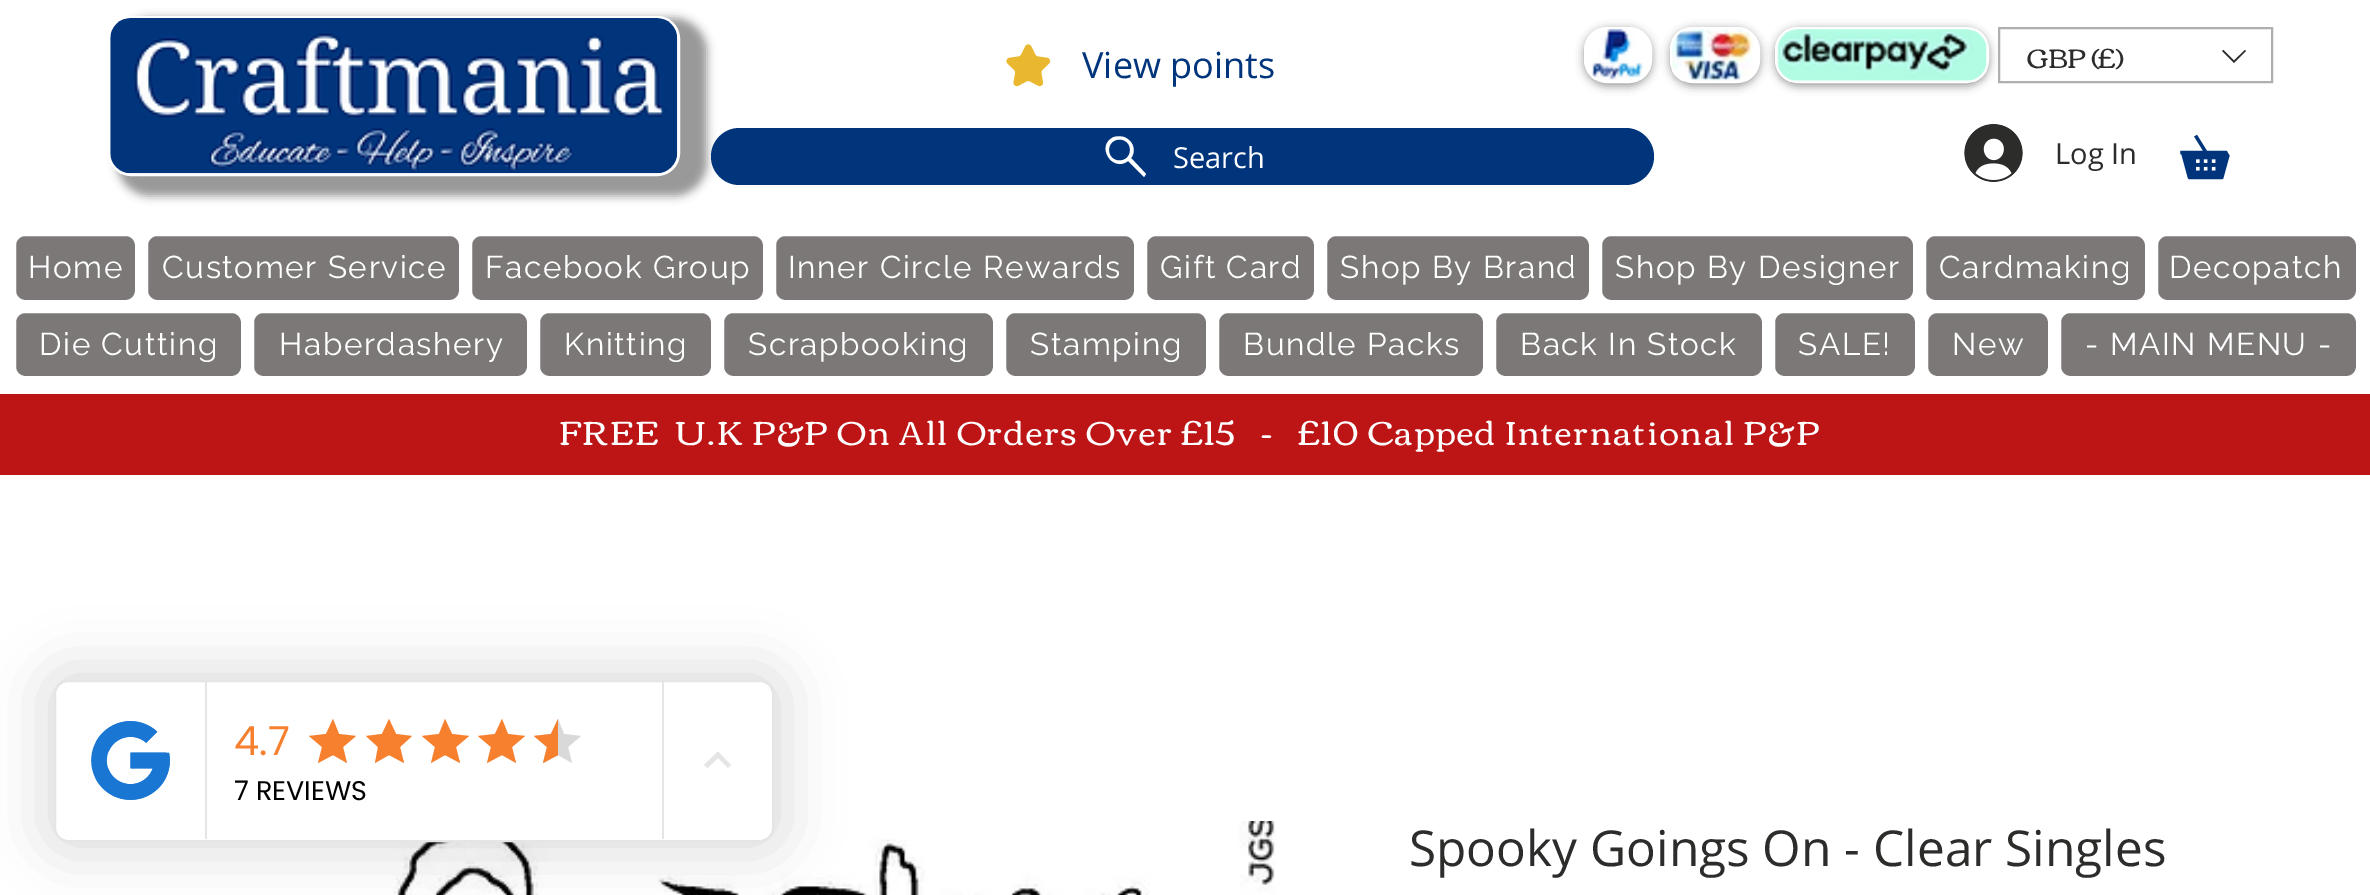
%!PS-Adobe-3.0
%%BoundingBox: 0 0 2370 895
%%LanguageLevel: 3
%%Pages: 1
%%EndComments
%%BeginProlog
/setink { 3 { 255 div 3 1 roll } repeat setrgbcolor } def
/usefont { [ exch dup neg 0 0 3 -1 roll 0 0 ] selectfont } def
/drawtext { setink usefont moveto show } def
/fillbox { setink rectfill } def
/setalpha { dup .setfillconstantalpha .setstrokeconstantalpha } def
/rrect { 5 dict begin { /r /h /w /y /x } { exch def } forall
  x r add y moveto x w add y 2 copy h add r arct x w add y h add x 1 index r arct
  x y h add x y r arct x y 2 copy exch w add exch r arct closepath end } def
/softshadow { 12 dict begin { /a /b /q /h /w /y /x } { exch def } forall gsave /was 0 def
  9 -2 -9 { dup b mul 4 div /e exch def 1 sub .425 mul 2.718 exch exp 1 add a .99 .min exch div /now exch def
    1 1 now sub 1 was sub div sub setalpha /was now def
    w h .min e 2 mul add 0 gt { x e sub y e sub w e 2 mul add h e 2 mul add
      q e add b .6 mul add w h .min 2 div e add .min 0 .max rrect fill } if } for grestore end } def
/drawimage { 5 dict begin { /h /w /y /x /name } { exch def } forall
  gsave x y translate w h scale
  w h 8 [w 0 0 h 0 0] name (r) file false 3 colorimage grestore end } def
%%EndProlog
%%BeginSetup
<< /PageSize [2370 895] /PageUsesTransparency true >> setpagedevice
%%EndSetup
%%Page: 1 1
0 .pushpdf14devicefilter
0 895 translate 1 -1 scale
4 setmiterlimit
0 0 2370 895 255 255 255 fillbox
0 0 0 setink
117 18 590 178 32 4.5 0.4 softshadow
255 255 255 setink
109 17 570 158 22 rrect gsave fill grestore
2 setlinewidth
stroke
(assets/img1.rgb) 110 18 568 156 drawimage
(assets/img2.rgb) 1006 44 45 43 drawimage
(View points) 1082 78 /OpenSans-Regular 36 0 53 124 drawtext
0 0 0 setink
1584 29 68 57 23 4.5 0.4 softshadow
255 255 255 setink
1585 28 66 54 22 rrect gsave fill grestore
stroke
(assets/img3.rgb) 1591 29 52 51 drawimage
0 0 0 setink
1670 29 90 57 23 4.5 0.4 softshadow
255 255 255 setink
1671 28 88 54 22 rrect gsave fill grestore
stroke
(assets/img4.rgb) 1672 29 81 52 drawimage
0 0 0 setink
1775 29 214 57 23 4.5 0.4 softshadow
255 255 255 setink
1776 28 212 54 22 rrect gsave fill grestore
stroke
(assets/img5.rgb) 1777 29 210 53 drawimage
176 174 174 setink
1999 28 273 54 rectstroke
(GBP \(£\)) 2027 68 /Corben-Regular 27 44 44 43 drawtext
2245 50 moveto 2246 51 lineto 2234 63 lineto 2222 51 lineto 2223.5 50 lineto 2234 60.5 lineto closepath eofill
0 53 124 setink
711 128 943 57 28.5 rrect fill
255 255 255 setink
1131 158 moveto 1136 152 1134 142 1126 138 curveto 1123 136 1118 136 1114 137 curveto 1095 145 1112 173 1128 161 curveto 1144 177 lineto 1146 174 lineto closepath 1130 150 moveto 1130 164 1109 164 1109 150 curveto 1109 136 1130 136 1130 150 curveto closepath fill
(Search) 1173 168 /OpenSans-Regular 29 255 255 255 drawtext
(assets/img6.rgb) 1964 124 59 58 drawimage
(Log In) 2055 164 /OpenSans-Regular 29 44 44 43 drawtext
(assets/img7.rgb) 2180 134 50 46 drawimage
124 120 120 setink
15 235 121 66 10 rrect gsave fill grestore
255 255 255 setink
stroke
/Raleway-Regular 31.5 usefont
28 278 moveto 1.6 0 (Home) ashow
124 120 120 setink
147 235 313 66 10 rrect gsave fill grestore
255 255 255 setink
stroke
162 278 moveto 1.6 0 (Customer Service) ashow
124 120 120 setink
471 235 293 66 10 rrect gsave fill grestore
255 255 255 setink
stroke
485 278 moveto 1.6 0 (Facebook Group) ashow
124 120 120 setink
775 235 360 66 10 rrect gsave fill grestore
255 255 255 setink
stroke
788 278 moveto 1.6 0 (Inner Circle Rewards) ashow
124 120 120 setink
1146 235 169 66 10 rrect gsave fill grestore
255 255 255 setink
stroke
1160 278 moveto 1.6 0 (Gift Card) ashow
124 120 120 setink
1326 235 264 66 10 rrect gsave fill grestore
255 255 255 setink
stroke
1340 278 moveto 1.6 0 (Shop By Brand) ashow
124 120 120 setink
1601 235 313 66 10 rrect gsave fill grestore
255 255 255 setink
stroke
1615 278 moveto 1.6 0 (Shop By Designer) ashow
124 120 120 setink
1925 235 221 66 10 rrect gsave fill grestore
255 255 255 setink
stroke
1939 278 moveto 1.6 0 (Cardmaking) ashow
124 120 120 setink
2157 235 200 66 10 rrect gsave fill grestore
255 255 255 setink
stroke
2169 278 moveto 1.6 0 (Decopatch) ashow
124 120 120 setink
15 312 227 65 10 rrect gsave fill grestore
255 255 255 setink
stroke
39 355 moveto 1.6 0 (Die Cutting) ashow
124 120 120 setink
253 312 275 65 10 rrect gsave fill grestore
255 255 255 setink
stroke
279 355 moveto 1.6 0 (Haberdashery) ashow
124 120 120 setink
539 312 173 65 10 rrect gsave fill grestore
255 255 255 setink
stroke
564 355 moveto 1.6 0 (Knitting) ashow
124 120 120 setink
723 312 271 65 10 rrect gsave fill grestore
255 255 255 setink
stroke
748 355 moveto 1.6 0 (Scrapbooking) ashow
124 120 120 setink
1005 312 202 65 10 rrect gsave fill grestore
255 255 255 setink
stroke
1030 355 moveto 1.6 0 (Stamping) ashow
124 120 120 setink
1218 312 266 65 10 rrect gsave fill grestore
255 255 255 setink
stroke
1243 355 moveto 1.6 0 (Bundle Packs) ashow
124 120 120 setink
1495 312 268 65 10 rrect gsave fill grestore
255 255 255 setink
stroke
1520 355 moveto 1.6 0 (Back In Stock) ashow
124 120 120 setink
1774 312 142 65 10 rrect gsave fill grestore
255 255 255 setink
stroke
1798 355 moveto 1.6 0 (SALE!) ashow
124 120 120 setink
1927 312 122 65 10 rrect gsave fill grestore
255 255 255 setink
stroke
1952 355 moveto 1.6 0 (New) ashow
124 120 120 setink
2060 312 297 65 10 rrect gsave fill grestore
255 255 255 setink
stroke
2085 355 moveto 1.6 0 (- MAIN MENU -) ashow
0 394 2370 81 189 21 21 fillbox
/Corben-Regular 33.75 usefont
255 255 255 setink
559 445 moveto 1.7 0 (FREE  U.K P&P On All Orders Over £15   -   £10 Capped International P&P) ashow
(assets/img8.rgb) 393 821 883 74 drawimage
(Spooky Goings On - Clear Singles) 1409 866 /OpenSans-Regular 49.5 44 44 43 drawtext
0 0 0 setink
41 666 747 189 27 27 0.12 softshadow
255 255 255 setink
55 681 718 160 13 rrect gsave fill grestore
229 229 229 setink
stroke
205 682 2 157 229 229 229 fillbox
(assets/img9.rgb) 91 721 79 79 drawimage
662 682 2 157 229 229 229 fillbox
(4.7) 234 755 /Poppins-Regular 40 247 128 47 drawtext
333 755 moveto 347 763 lineto 343 747 lineto 356 736 lineto 339 734 lineto 333 719 lineto 326 734 lineto 309 736 lineto 322 747 lineto 318 763 lineto closepath fill
389 755 moveto 404 763 lineto 400 747 lineto 412 736 lineto 396 734 lineto 389 719 lineto 382 734 lineto 366 736 lineto 378 747 lineto 375 763 lineto closepath fill
445 755 moveto 460 763 lineto 456 747 lineto 469 736 lineto 452 734 lineto 445 719 lineto 439 734 lineto 422 736 lineto 435 747 lineto 431 763 lineto closepath fill
502 755 moveto 516 763 lineto 512 747 lineto 525 736 lineto 508 734 lineto 502 719 lineto 495 734 lineto 478 736 lineto 491 747 lineto 487 763 lineto closepath fill
217 217 217 setink
558 755 moveto 572 763 lineto 568 747 lineto 581 736 lineto 564 734 lineto 558 719 lineto 551 734 lineto 534 736 lineto 547 747 lineto 543 763 lineto closepath fill
247 128 47 setink
558 719 moveto 551 734 lineto 534 736 lineto 547 747 lineto 543 763 lineto 558 755 lineto closepath fill
(7 REVIEWS) 234 800 /Poppins-Regular 27 0 0 0 drawtext
229 229 229 setink
707.5 768 moveto 718 758 lineto 728 768 lineto 731 765 lineto 718 751.5 lineto 704 765 lineto closepath fill
.poppdf14devicefilter showpage
%%EOF
